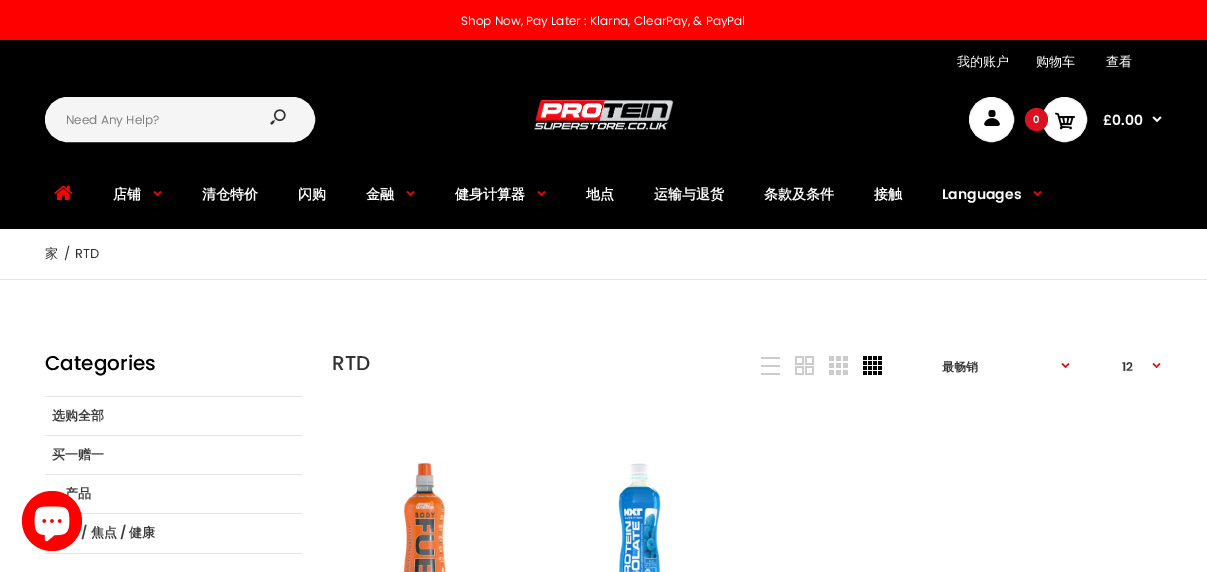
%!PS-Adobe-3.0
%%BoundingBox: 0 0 1207 572
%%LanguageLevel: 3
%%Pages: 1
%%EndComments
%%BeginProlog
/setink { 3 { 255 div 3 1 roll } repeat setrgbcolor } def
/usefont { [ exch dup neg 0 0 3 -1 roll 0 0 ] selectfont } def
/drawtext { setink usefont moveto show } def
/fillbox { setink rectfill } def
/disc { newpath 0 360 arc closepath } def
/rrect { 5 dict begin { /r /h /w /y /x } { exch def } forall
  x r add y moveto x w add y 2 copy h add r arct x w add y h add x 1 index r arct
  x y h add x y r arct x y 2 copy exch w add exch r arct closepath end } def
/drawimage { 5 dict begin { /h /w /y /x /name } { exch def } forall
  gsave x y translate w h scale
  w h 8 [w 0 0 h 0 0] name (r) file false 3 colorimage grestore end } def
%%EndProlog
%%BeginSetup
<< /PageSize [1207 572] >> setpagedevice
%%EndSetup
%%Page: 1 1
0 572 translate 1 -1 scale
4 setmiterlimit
0 0 1207 572 255 255 255 fillbox
0 0 1207 40 255 0 0 fillbox
(Shop Now, Pay Later : Klarna, ClearPay, & PayPal) 461 25 /Poppins-Regular 12 255 255 255 drawtext
0 40 1207 189 0 0 0 fillbox
(我的账户) 957 66 /WenQuanYiZenHei-Medium 13 255 255 255 drawtext
(购物车) 1036 66 /WenQuanYiZenHei-Medium 13 255 255 255 drawtext
(查看) 1106 66 /WenQuanYiZenHei-Medium 13 255 255 255 drawtext
245 245 245 setink
45.5 97.5 269 44 22 rrect gsave fill grestore
stroke
(Need Any Help?) 66 124 /Poppins-Regular 12 128 128 128 drawtext
(assets/img1.rgb) 270 109 16 16 drawimage
(assets/img2.rgb) 534 97 140 33 drawimage
255 255 255 setink
991.5 119.5 22 disc gsave fill grestore
241 241 241 setink
stroke
(assets/img3.rgb) 984 110 16 16 drawimage
255 255 255 setink
1064.5 119.5 22 disc gsave fill grestore
241 241 241 setink
stroke
217 18 31 setink
1036.5 119.5 11.5 disc fill
(0) 1033 123 /Poppins-SemiBold 10 255 255 255 drawtext
(assets/img4.rgb) 1055 112 20 18 drawimage
(£0.00) 1103 125 /Poppins-SemiBold 14 255 255 255 drawtext
(assets/img5.rgb) 1152 116 10 7 drawimage
(assets/img6.rgb) 54 185 19 15 drawimage
(店铺) 113 199 /WenQuanYiZenHei-Bold 14 255 255 255 drawtext
(assets/img7.rgb) 153 191 9 6 drawimage
(清仓特价) 202 199 /WenQuanYiZenHei-Bold 14 255 255 255 drawtext
(闪购) 298 199 /WenQuanYiZenHei-Bold 14 255 255 255 drawtext
(金融) 366 199 /WenQuanYiZenHei-Bold 14 255 255 255 drawtext
(assets/img7.rgb) 406 191 9 6 drawimage
(健身计算器) 455 199 /WenQuanYiZenHei-Bold 14 255 255 255 drawtext
(assets/img7.rgb) 537 191 9 6 drawimage
(地点) 586 199 /WenQuanYiZenHei-Bold 14 255 255 255 drawtext
(运输与退货) 654 199 /WenQuanYiZenHei-Bold 14 255 255 255 drawtext
(条款及条件) 764 199 /WenQuanYiZenHei-Bold 14 255 255 255 drawtext
(接触) 874 199 /WenQuanYiZenHei-Bold 14 255 255 255 drawtext
(Languages) 942 199 /Poppins-SemiBold 14 255 255 255 drawtext
(assets/img7.rgb) 1033 191 9 6 drawimage
0 279 1207 1 229 229 229 fillbox
(家) 45 258 /WenQuanYiZenHei-Medium 13 51 51 51 drawtext
(/) 64 258 /Poppins-Regular 13 51 51 51 drawtext
(RTD) 75 258 /Poppins-Regular 13 51 51 51 drawtext
(Categories) 45 370 /Poppins-Medium 20 0 0 0 drawtext
45 396 257 1 229 229 229 fillbox
(选购全部) 52 420 /WenQuanYiZenHei-Bold 13 61 61 61 drawtext
45 435 257 1 229 229 229 fillbox
(买一赠一) 52 459 /WenQuanYiZenHei-Bold 13 61 61 61 drawtext
45 474 257 1 229 229 229 fillbox
(产品) 65 498 /WenQuanYiZenHei-Bold 13 61 61 61 drawtext
80 513 222 1 229 229 229 fillbox
(/) 81 537 /Poppins-SemiBold 13 61 61 61 drawtext
(焦点) 91 537 /WenQuanYiZenHei-Bold 13 61 61 61 drawtext
(/) 120 537 /Poppins-SemiBold 13 61 61 61 drawtext
(健康) 129 537 /WenQuanYiZenHei-Bold 13 61 61 61 drawtext
45 553 257 1 229 229 229 fillbox
(RTD) 332 370 /Poppins-Medium 20 51 51 51 drawtext
761 357 19 2 204 204 204 fillbox
761 365 19 2 204 204 204 fillbox
761 373 19 2 204 204 204 fillbox
(assets/img8.rgb) 795 356 19 19 drawimage
(assets/img9.rgb) 829 356 19 19 drawimage
(assets/img10.rgb) 863 356 19 19 drawimage
(最畅销) 942 371 /WenQuanYiZenHei-Bold 12 51 51 51 drawtext
(assets/img11.rgb) 1061 363 9 6 drawimage
(12) 1122 371 /Poppins-SemiBold 12 51 51 51 drawtext
(assets/img11.rgb) 1152 363 9 6 drawimage
(assets/img12.rgb) 403 462 43 110 drawimage
(assets/img13.rgb) 618 463 44 109 drawimage
255 0 0 setink
52 521 30 disc fill
(assets/img14.rgb) 34 506 36 36 drawimage
showpage
%%EOF
